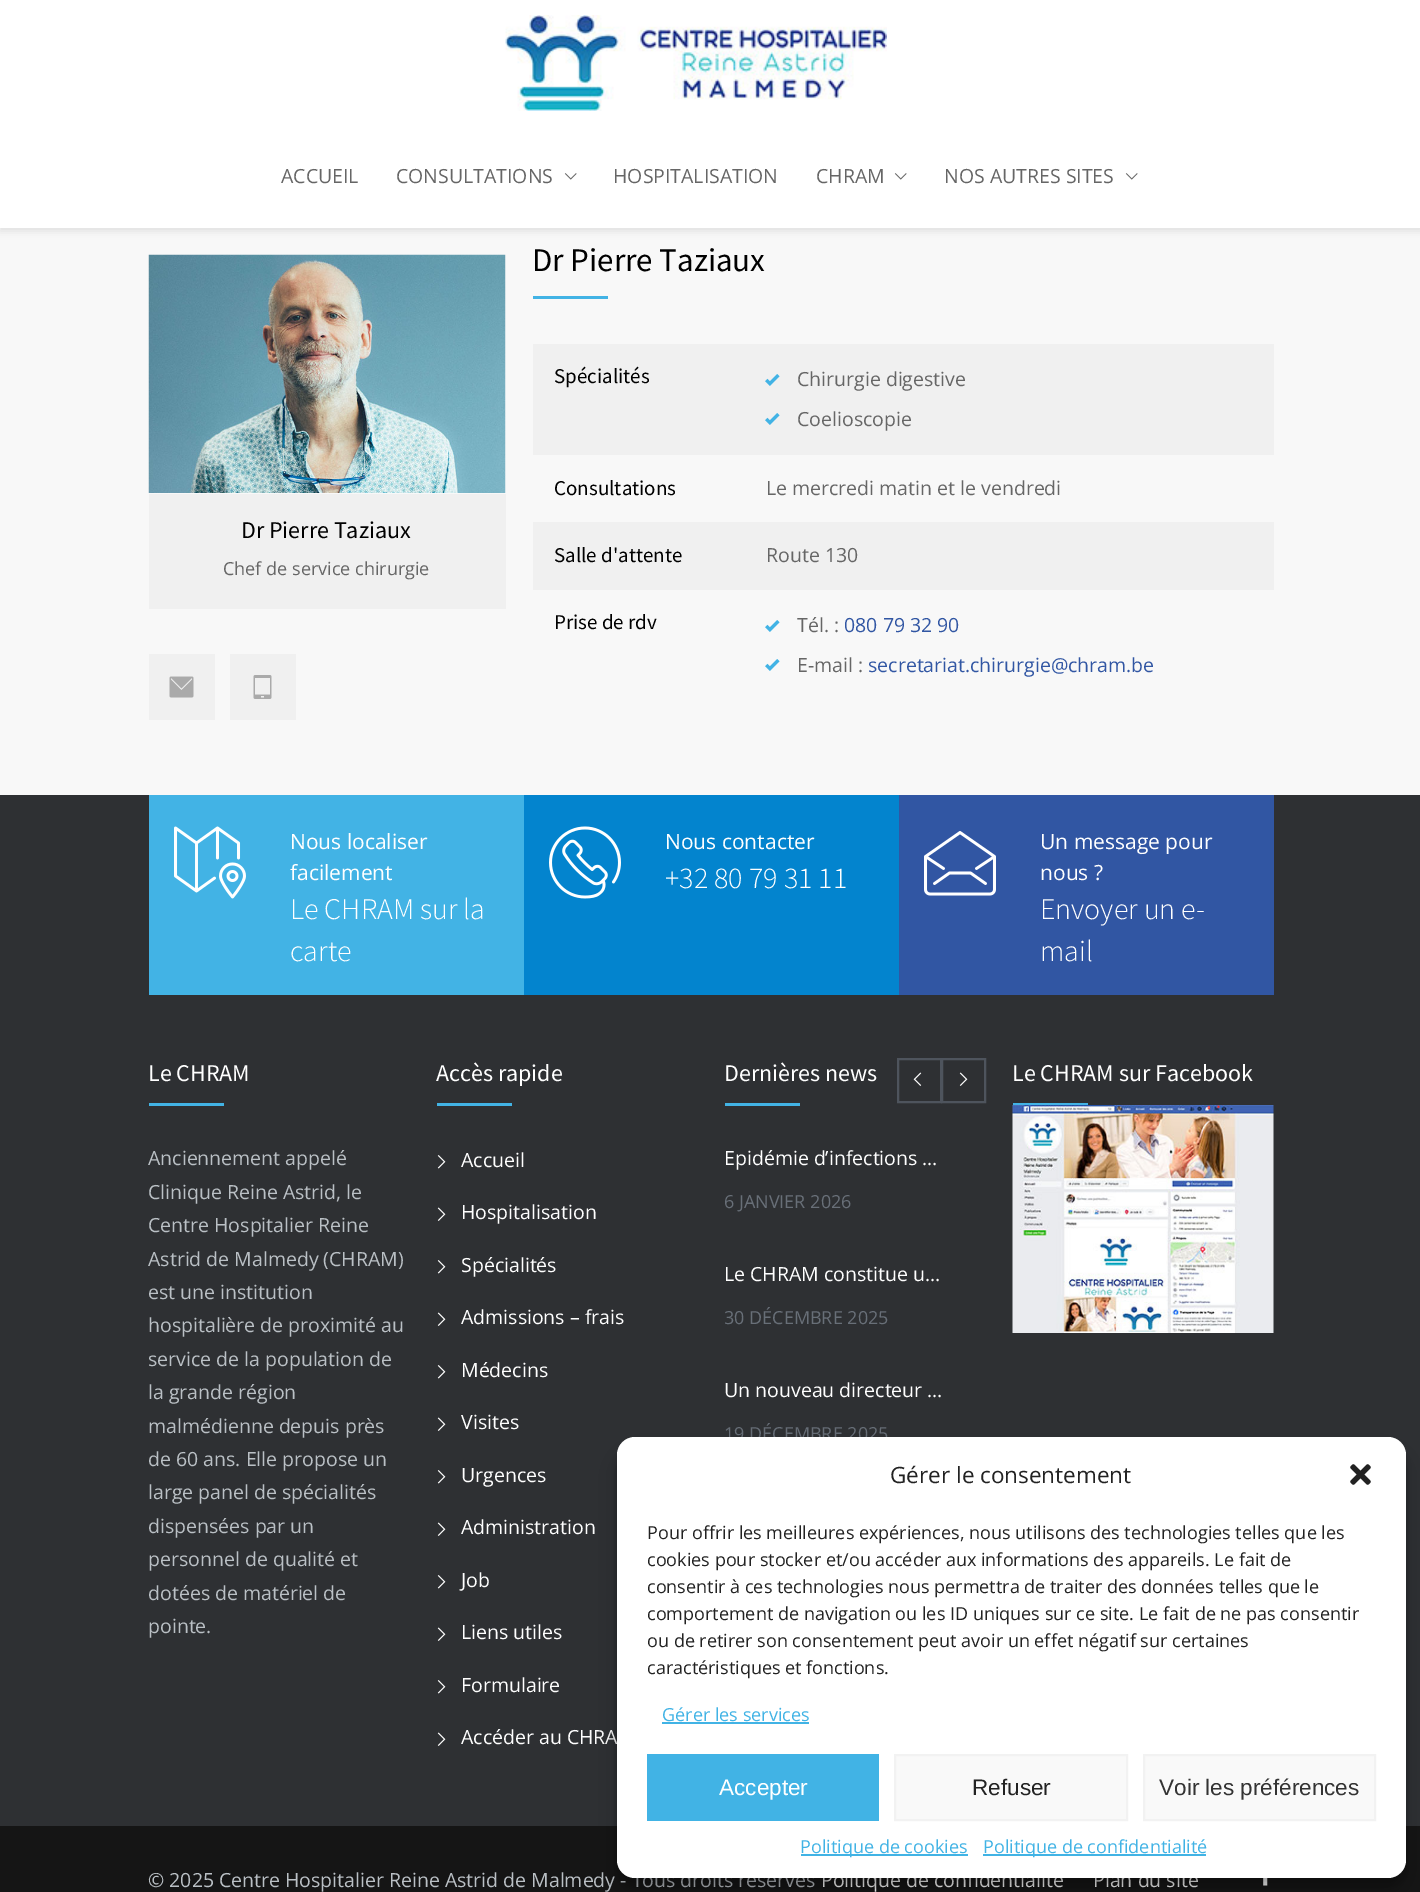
%!PS-Adobe-3.0
%%BoundingBox: 0 0 1420 1892
%%LanguageLevel: 3
%%Pages: 1
%%EndComments
%%BeginProlog
/setink { 3 { 255 div 3 1 roll } repeat setrgbcolor } def
/usefont { [ exch dup neg 0 0 3 -1 roll 0 0 ] selectfont } def
/drawtext { setink usefont moveto show } def
/fillbox { setink rectfill } def
/setalpha { dup .setfillconstantalpha .setstrokeconstantalpha } def
/rrect { 5 dict begin { /r /h /w /y /x } { exch def } forall
  x r add y moveto x w add y 2 copy h add r arct x w add y h add x 1 index r arct
  x y h add x y r arct x y 2 copy exch w add exch r arct closepath end } def
/softshadow { 12 dict begin { /a /b /q /h /w /y /x } { exch def } forall gsave /was 0 def
  9 -2 -9 { dup b mul 4 div /e exch def 1 sub .425 mul 2.718 exch exp 1 add a .99 .min exch div /now exch def
    1 1 now sub 1 was sub div sub setalpha /was now def
    w h .min e 2 mul add 0 gt { x e sub y e sub w e 2 mul add h e 2 mul add
      q e add b .6 mul add w h .min 2 div e add .min 0 .max rrect fill } if } for grestore end } def
/drawimage { 5 dict begin { /h /w /y /x /name } { exch def } forall
  gsave x y translate w h scale
  w h 8 [w 0 0 h 0 0] name (r) file false 3 colorimage grestore end } def
%%EndProlog
%%BeginSetup
<< /PageSize [1420 1892] /PageUsesTransparency true >> setpagedevice
%%EndSetup
%%Page: 1 1
0 .pushpdf14devicefilter
0 1892 translate 1 -1 scale
4 setmiterlimit
0 0 1420 1892 248 248 248 fillbox
0 0 0 setink
0 3 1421 228 0 4 0.1 softshadow
0 0 1420 228 255 255 255 fillbox
(assets/img1.rgb) 505 15 382 96 drawimage
(ACCUEIL) 281 183 /OpenSans-Regular 19.5 102 102 102 drawtext
(CONSULTATIONS) 396 183 /OpenSans-Regular 19.5 102 102 102 drawtext
(assets/img2.rgb) 564 173 13 7 drawimage
(HOSPITALISATION) 613 183 /OpenSans-Regular 19.5 102 102 102 drawtext
(CHRAM) 816 183 /OpenSans-Regular 19.5 102 102 102 drawtext
(assets/img2.rgb) 894 173 13 7 drawimage
(NOS AUTRES SITES) 944 183 /OpenSans-Regular 19.5 102 102 102 drawtext
(assets/img2.rgb) 1125 173 13 7 drawimage
(assets/img3.rgb) 148 254 358 239 drawimage
149 494 357 115 240 240 240 fillbox
(Dr Pierre Taziaux) 241 538 /SourceSansPro-Regular 24 0 0 0 drawtext
(Chef de service chirurgie) 223 575 /OpenSans-Regular 18 102 102 102 drawtext
149 654 66 66 240 240 240 fillbox
(assets/img4.rgb) 169 676 25 22 drawimage
230 654 66 66 240 240 240 fillbox
(assets/img5.rgb) 253 675 19 24 drawimage
(Dr Pierre Taziaux) 532 271 /SourceSansPro-Regular 33 0 0 0 drawtext
533 296 75 3 66 179 229 fillbox
533 344 741 111 240 240 240 fillbox
(Spécialités) 554 383 /SourceSansPro-Regular 21 0 0 0 drawtext
(assets/img6.rgb) 765 374 15 12 drawimage
(Chirurgie digestive) 797 386 /OpenSans-Regular 19.5 102 102 102 drawtext
(assets/img6.rgb) 765 413 15 12 drawimage
(Coelioscopie) 797 426 /OpenSans-Regular 19.5 102 102 102 drawtext
(Consultations) 554 495 /SourceSansPro-Regular 21 0 0 0 drawtext
(Le mercredi matin et le vendredi) 766 495 /OpenSans-Regular 19.5 102 102 102 drawtext
533 522 741 68 240 240 240 fillbox
(Salle d'attente) 554 562 /SourceSansPro-Regular 21 0 0 0 drawtext
(Route 130) 766 562 /OpenSans-Regular 19.5 102 102 102 drawtext
(Prise de rdv) 554 629 /SourceSansPro-Regular 21 0 0 0 drawtext
(assets/img7.rgb) 765 620 15 12 drawimage
(Tél. :) 797 632 /OpenSans-Regular 19.5 102 102 102 drawtext
(080 79 32 90) 844 632 /OpenSans-Regular 19.5 49 86 163 drawtext
(assets/img7.rgb) 765 659 15 12 drawimage
(E-mail :) 797 672 /OpenSans-Regular 19.5 102 102 102 drawtext
(secretariat.chirurgie@chram.be) 868 672 /OpenSans-Regular 19.5 49 86 163 drawtext
0 795 1420 1031 46 48 51 fillbox
149 795 375 200 66 179 229 fillbox
(assets/img8.rgb) 174 826 72 73 drawimage
(Nous localiser) 290 849 /OpenSans-Regular 21 255 255 255 drawtext
(facilement) 290 880 /OpenSans-Regular 21 255 255 255 drawtext
(Le CHRAM sur la) 290 919 /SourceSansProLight-Light 30 255 255 255 drawtext
(carte) 290 961 /SourceSansProLight-Light 30 255 255 255 drawtext
524 795 375 200 3 132 206 fillbox
(assets/img9.rgb) 549 826 72 73 drawimage
(Nous contacter) 665 849 /OpenSans-Regular 21 255 255 255 drawtext
(+32 80 79 31 11) 665 888 /SourceSansProLight-Light 30 255 255 255 drawtext
899 795 375 200 49 86 163 fillbox
(assets/img10.rgb) 924 831 72 65 drawimage
(Un message pour) 1040 849 /OpenSans-Regular 21 255 255 255 drawtext
(nous ?) 1040 880 /OpenSans-Regular 21 255 255 255 drawtext
(Envoyer un e-) 1040 919 /SourceSansProLight-Light 30 255 255 255 drawtext
(mail) 1040 961 /SourceSansProLight-Light 30 255 255 255 drawtext
(Le CHRAM) 148 1081 /SourceSansPro-Regular 24 255 255 255 drawtext
149 1103 75 3 66 179 229 fillbox
(Anciennement appelé) 148 1165 /OpenSans-Regular 19.5 186 192 197 drawtext
(Clinique Reine Astrid, le) 148 1199 /OpenSans-Regular 19.5 186 192 197 drawtext
(Centre Hospitalier Reine) 148 1232 /OpenSans-Regular 19.5 186 192 197 drawtext
(Astrid de Malmedy \(CHRAM\)) 148 1266 /OpenSans-Regular 19.5 186 192 197 drawtext
(est une institution) 148 1299 /OpenSans-Regular 19.5 186 192 197 drawtext
(hospitalière de proximité au) 148 1332 /OpenSans-Regular 19.5 186 192 197 drawtext
(service de la population de) 148 1366 /OpenSans-Regular 19.5 186 192 197 drawtext
(la grande région) 148 1399 /OpenSans-Regular 19.5 186 192 197 drawtext
(malmédienne depuis près) 148 1433 /OpenSans-Regular 19.5 186 192 197 drawtext
(de 60 ans. Elle propose un) 148 1466 /OpenSans-Regular 19.5 186 192 197 drawtext
(large panel de spécialités) 148 1499 /OpenSans-Regular 19.5 186 192 197 drawtext
(dispensées par un) 148 1533 /OpenSans-Regular 19.5 186 192 197 drawtext
(personnel de qualité et) 148 1566 /OpenSans-Regular 19.5 186 192 197 drawtext
(dotées de matériel de) 148 1600 /OpenSans-Regular 19.5 186 192 197 drawtext
(pointe.) 148 1633 /OpenSans-Regular 19.5 186 192 197 drawtext
(Accès rapide) 436 1081 /SourceSansPro-Regular 24 255 255 255 drawtext
437 1103 75 3 66 179 229 fillbox
(assets/img11.rgb) 437 1155 9 14 drawimage
(Accueil) 461 1167 /OpenSans-Regular 19.5 255 255 255 drawtext
(assets/img12.rgb) 437 1207 9 14 drawimage
(Hospitalisation) 461 1219 /OpenSans-Regular 19.5 255 255 255 drawtext
(assets/img11.rgb) 437 1260 9 14 drawimage
(Spécialités) 461 1272 /OpenSans-Regular 19.5 255 255 255 drawtext
(assets/img12.rgb) 437 1312 9 14 drawimage
(Admissions – frais) 461 1324 /OpenSans-Regular 19.5 255 255 255 drawtext
(assets/img11.rgb) 437 1365 9 14 drawimage
(Médecins) 461 1377 /OpenSans-Regular 19.5 255 255 255 drawtext
(assets/img12.rgb) 437 1417 9 14 drawimage
(Visites) 461 1429 /OpenSans-Regular 19.5 255 255 255 drawtext
(assets/img11.rgb) 437 1470 9 14 drawimage
(Urgences) 461 1482 /OpenSans-Regular 19.5 255 255 255 drawtext
(assets/img12.rgb) 437 1522 9 14 drawimage
(Administration) 461 1534 /OpenSans-Regular 19.5 255 255 255 drawtext
(assets/img11.rgb) 437 1575 9 14 drawimage
(Job) 461 1587 /OpenSans-Regular 19.5 255 255 255 drawtext
(assets/img12.rgb) 437 1627 9 14 drawimage
(Liens utiles) 461 1639 /OpenSans-Regular 19.5 255 255 255 drawtext
(assets/img11.rgb) 437 1680 9 14 drawimage
(Formulaire) 461 1692 /OpenSans-Regular 19.5 255 255 255 drawtext
(assets/img12.rgb) 437 1732 9 14 drawimage
(Accéder au CHRA) 461 1744 /OpenSans-Regular 19.5 255 255 255 drawtext
(Dernières news) 724 1081 /SourceSansPro-Regular 24 255 255 255 drawtext
725 1103 75 3 66 179 229 fillbox
78 84 93 setink
2 setlinewidth
898 1059 43 43 rectstroke
(assets/img13.rgb) 913 1072 9 14 drawimage
942 1059 43 43 rectstroke
(assets/img12.rgb) 959 1072 9 14 drawimage
(Epidémie d’infections …) 724 1165 /OpenSans-Regular 19.5 255 255 255 drawtext
gsave
725 1122 261 348 rectclip
(6 JANVIER 2026) 724 1208 /OpenSans-Regular 18 104 111 120 drawtext
grestore
(Le CHRAM constitue u…) 724 1281 /OpenSans-Regular 19.5 255 255 255 drawtext
gsave
725 1122 261 348 rectclip
(30 DÉCEMBRE 2025) 724 1324 /OpenSans-Regular 18 104 111 120 drawtext
grestore
(Un nouveau directeur …) 724 1397 /OpenSans-Regular 19.5 255 255 255 drawtext
(19 DÉCEMBRE 2025) 724 1440 /OpenSans-Regular 18 104 111 120 drawtext
(Le CHRAM sur Facebook) 1012 1081 /SourceSansPro-Regular 24 255 255 255 drawtext
1013 1103 75 2 66 179 229 fillbox
(assets/img14.rgb) 1012 1105 262 228 drawimage
0 1826 1420 66 21 21 21 fillbox
(© 2025 Centre Hospitalier Reine Astrid de Malmedy - Tous droits réservés) 148 1887 /OpenSans-Regular 19.5 186 192 197 drawtext
(Politique de confidentialité) 821 1887 /OpenSans-Regular 19.5 255 255 255 drawtext
(Plan du site) 1093 1887 /OpenSans-Regular 19.5 255 255 255 drawtext
(assets/img15.rgb) 1263 1878 5 8 drawimage
0 0 0 setink
617 1446 789 441 18 4.5 0.23 softshadow
617 1452 789 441 18 15 0.19 softshadow
255 255 255 setink
617 1437 789 441 18 rrect fill
(Gérer le consentement) 890 1483 /OpenSans-Regular 22.5 34 34 34 drawtext
(assets/img16.rgb) 1350 1464 21 21 drawimage
(Pour offrir les meilleures expériences, nous utilisons des technologies telles que les) 647 1539 /OpenSans-Regular 18 34 34 34 drawtext
(cookies pour stocker et/ou accéder aux informations des appareils. Le fait de) 647 1566 /OpenSans-Regular 18 34 34 34 drawtext
(consentir à ces technologies nous permettra de traiter des données telles que le) 647 1593 /OpenSans-Regular 18 34 34 34 drawtext
(comportement de navigation ou les ID uniques sur ce site. Le fait de ne pas consentir) 647 1620 /OpenSans-Regular 18 34 34 34 drawtext
(ou de retirer son consentement peut avoir un effet négatif sur certaines) 647 1647 /OpenSans-Regular 18 34 34 34 drawtext
(caractéristiques et fonctions.) 647 1674 /OpenSans-Regular 18 34 34 34 drawtext
(Gérer les services) 662 1721 /OpenSans-Regular 18 65 179 229 drawtext
662 1722 147 2 65 179 229 fillbox
647 1754 232 67 65 179 229 fillbox
(Accepter) 719 1795 /LiberationSans-Regular 22.5 255 255 255 drawtext
249 249 249 setink
895 1755 moveto 1127 1755 lineto 1127 1820 lineto 895 1820 lineto closepath gsave fill grestore
242 242 242 setink
stroke
(Refuser) 972 1795 /LiberationSans-Regular 22.5 34 34 34 drawtext
249 249 249 setink
1144 1755 moveto 1375 1755 lineto 1375 1820 lineto 1144 1820 lineto closepath gsave fill grestore
242 242 242 setink
stroke
(Voir les préférences) 1159 1795 /LiberationSans-Regular 22.5 51 51 51 drawtext
801 1854 167 2 65 179 229 fillbox
(Politique de cookies) 800 1853 /OpenSans-Regular 18 65 179 229 drawtext
983 1854 223 2 65 179 229 fillbox
(Politique de confidentialité) 983 1853 /OpenSans-Regular 18 65 179 229 drawtext
.poppdf14devicefilter showpage
%%EOF
